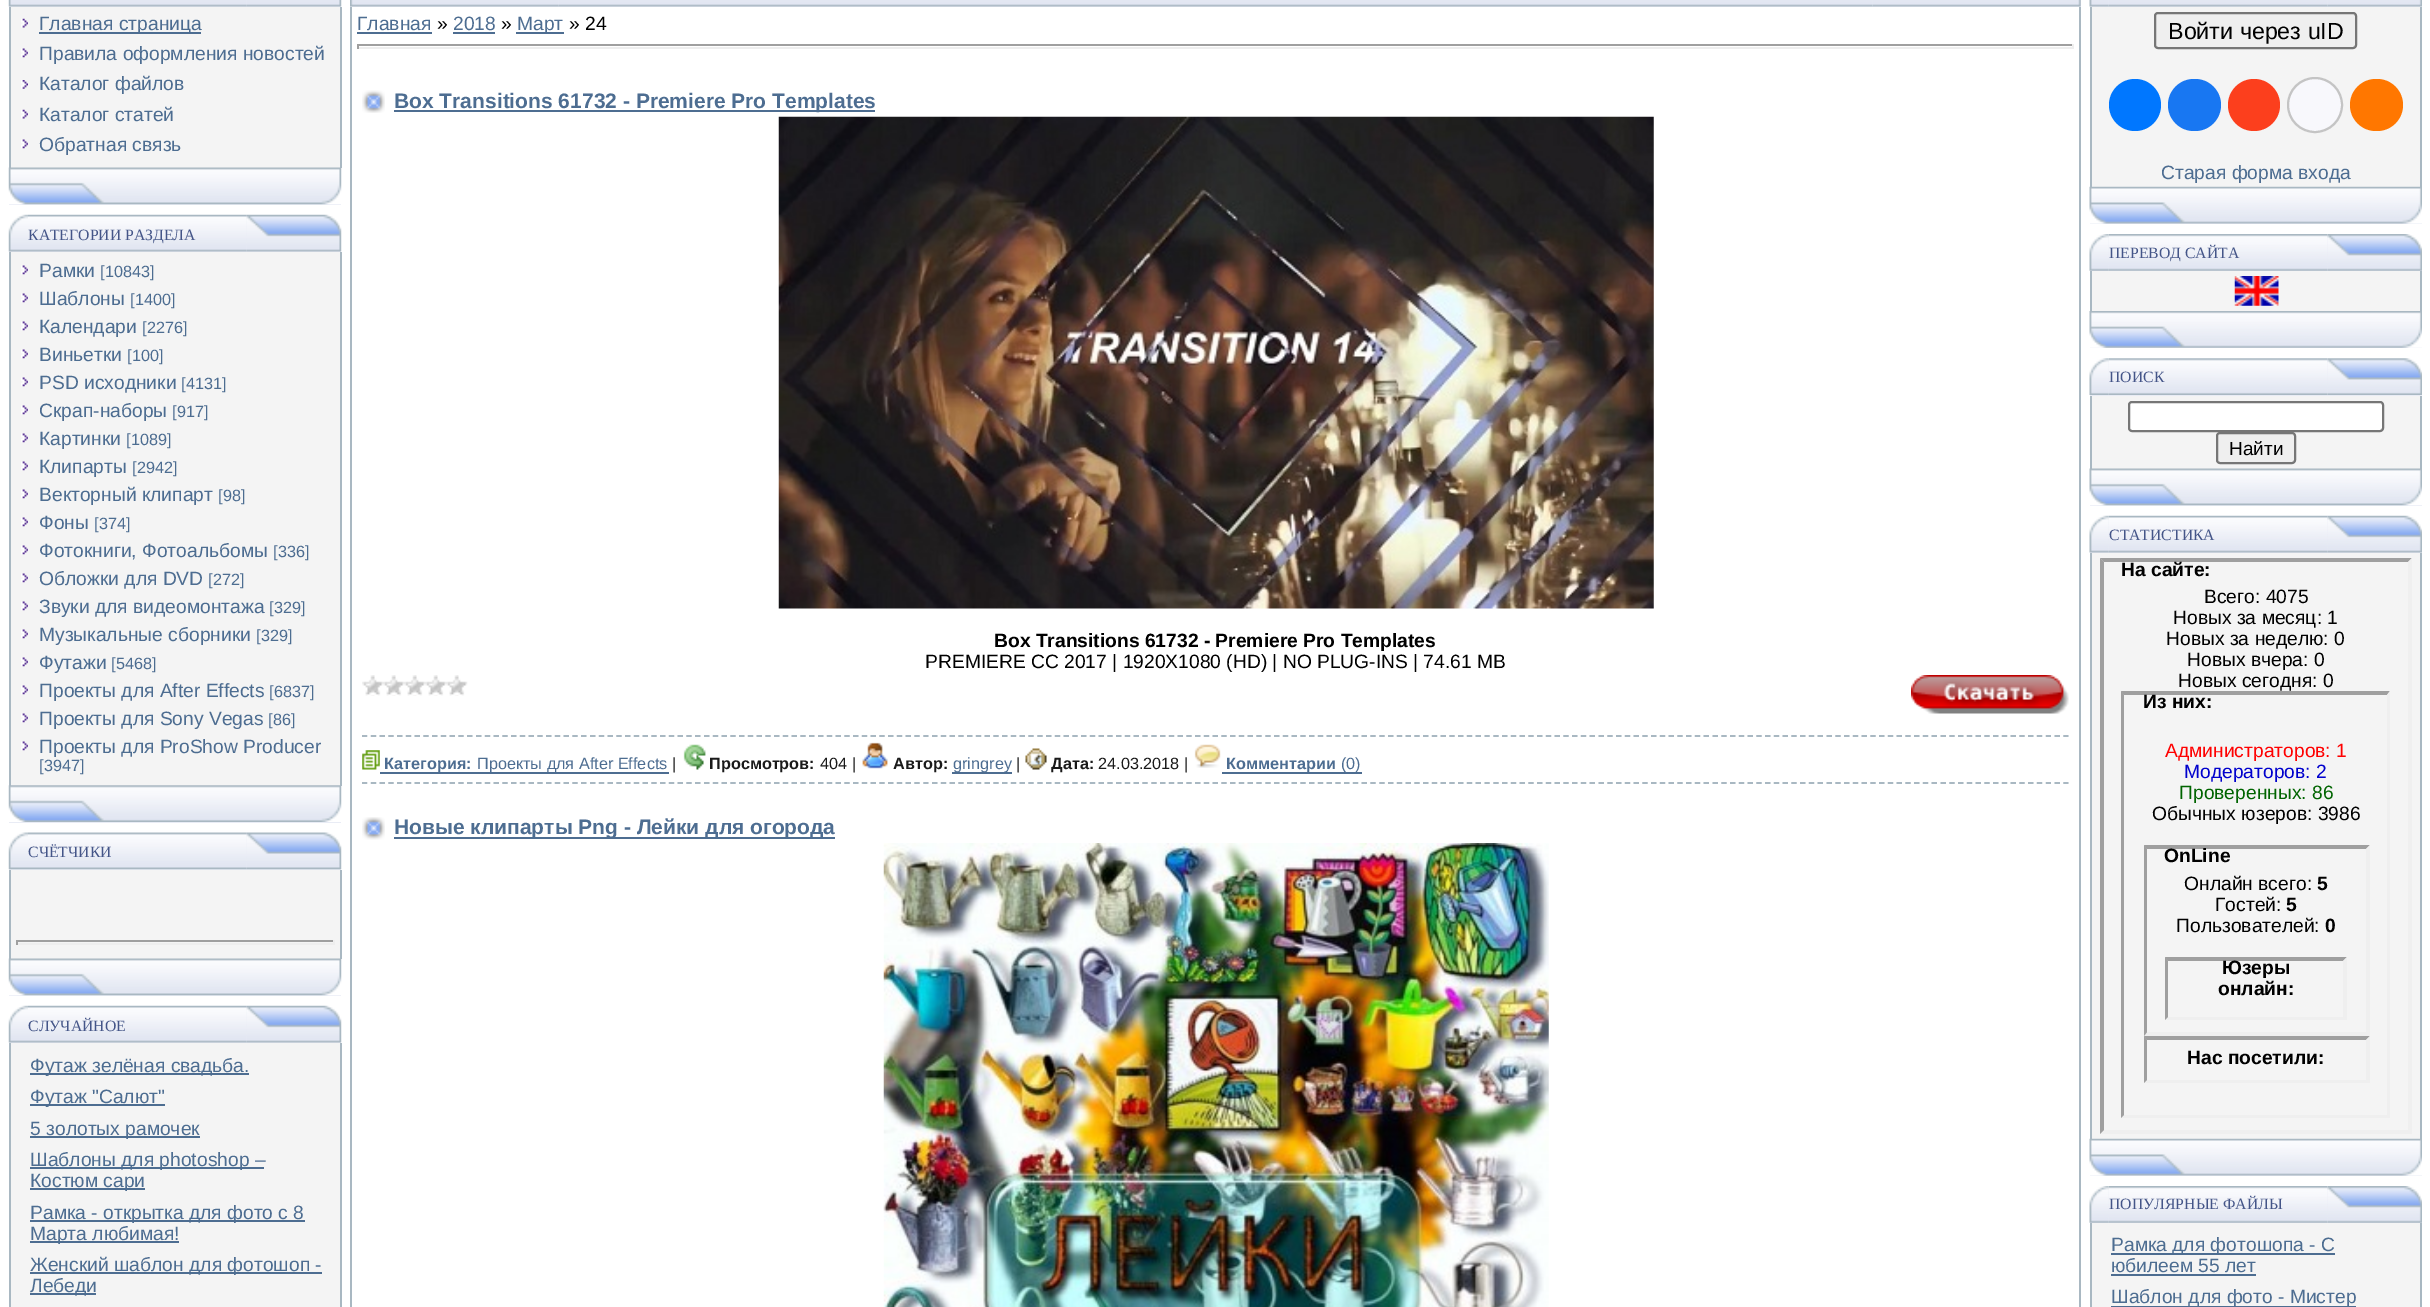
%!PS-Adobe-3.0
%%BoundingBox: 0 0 2430 1307
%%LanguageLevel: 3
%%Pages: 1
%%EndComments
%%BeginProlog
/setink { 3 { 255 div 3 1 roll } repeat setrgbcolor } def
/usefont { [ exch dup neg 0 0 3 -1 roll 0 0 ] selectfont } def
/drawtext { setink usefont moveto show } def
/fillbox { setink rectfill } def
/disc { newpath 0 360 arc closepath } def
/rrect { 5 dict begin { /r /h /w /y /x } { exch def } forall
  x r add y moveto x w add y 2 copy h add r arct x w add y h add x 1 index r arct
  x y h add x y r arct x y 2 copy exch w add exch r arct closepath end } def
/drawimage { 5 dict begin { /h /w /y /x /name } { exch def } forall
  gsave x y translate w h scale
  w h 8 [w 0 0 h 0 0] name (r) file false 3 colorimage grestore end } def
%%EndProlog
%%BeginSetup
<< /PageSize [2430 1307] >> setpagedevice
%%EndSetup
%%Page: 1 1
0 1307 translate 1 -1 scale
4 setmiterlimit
0 0 2430 1307 255 255 255 fillbox
9 0 332 7 233 236 245 fillbox
(assets/img1.rgb) 8 0 20 7 drawimage
(assets/img2.rgb) 28 0 219 7 drawimage
(assets/img3.rgb) 246 0 96 7 drawimage
11 7 329 161 244 244 244 fillbox
340 7 2 161 169 184 194 fillbox
9 7 2 161 169 184 194 fillbox
(assets/img4.rgb) 21 18 7 10 drawimage
39 32 162 2 77 109 145 fillbox
(Главная страница) 39 30 /LiberationSans-Regular 19.25 77 109 145 drawtext
(assets/img5.rgb) 21 48 7 10 drawimage
(Правила оформления новостей) 39 60 /LiberationSans-Regular 19.25 77 109 145 drawtext
(assets/img6.rgb) 21 80 7 9 drawimage
(Каталог файлов) 39 90 /LiberationSans-Regular 19.25 77 109 145 drawtext
(assets/img4.rgb) 21 109 7 10 drawimage
(Каталог статей) 39 121 /LiberationSans-Regular 19.25 77 109 145 drawtext
(assets/img5.rgb) 21 139 7 10 drawimage
(Обратная связь) 39 151 /LiberationSans-Regular 19.25 77 109 145 drawtext
9 204 332 1 233 236 245 fillbox
(assets/img7.rgb) 8 167 334 38 drawimage
9 215 332 37 233 236 245 fillbox
(assets/img8.rgb) 8 214 20 38 drawimage
(assets/img9.rgb) 28 214 219 38 drawimage
(КАТЕГОРИИ РАЗДЕЛА) 28 240 /LiberationSerif-Regular 15.75 68 85 136 drawtext
(assets/img10.rgb) 246 214 96 38 drawimage
11 252 329 534 244 244 244 fillbox
340 252 2 534 169 184 194 fillbox
9 252 2 534 169 184 194 fillbox
(assets/img5.rgb) 21 265 7 10 drawimage
(Рамки) 39 277 /LiberationSans-Regular 19.25 77 109 145 drawtext
([10843]) 100 277 /LiberationSans-Regular 16.25 77 109 145 drawtext
(assets/img5.rgb) 21 293 7 10 drawimage
(Шаблоны) 39 305 /LiberationSans-Regular 19.25 77 109 145 drawtext
([1400]) 130 305 /LiberationSans-Regular 16.25 77 109 145 drawtext
(assets/img5.rgb) 21 321 7 10 drawimage
(Календари) 39 333 /LiberationSans-Regular 19.25 77 109 145 drawtext
([2276]) 142 333 /LiberationSans-Regular 16.25 77 109 145 drawtext
(assets/img5.rgb) 21 349 7 10 drawimage
(Виньетки) 39 361 /LiberationSans-Regular 19.25 77 109 145 drawtext
([100]) 127 361 /LiberationSans-Regular 16.25 77 109 145 drawtext
(assets/img5.rgb) 21 377 7 10 drawimage
(PSD исходники) 39 389 /LiberationSans-Regular 19.25 77 109 145 drawtext
([4131]) 181 389 /LiberationSans-Regular 16.25 77 109 145 drawtext
(assets/img5.rgb) 21 405 7 10 drawimage
(Скрап-наборы) 39 417 /LiberationSans-Regular 19.25 77 109 145 drawtext
([917]) 172 417 /LiberationSans-Regular 16.25 77 109 145 drawtext
(assets/img5.rgb) 21 433 7 10 drawimage
(Картинки) 39 445 /LiberationSans-Regular 19.25 77 109 145 drawtext
([1089]) 126 445 /LiberationSans-Regular 16.25 77 109 145 drawtext
(assets/img5.rgb) 21 461 7 10 drawimage
(Клипарты) 39 473 /LiberationSans-Regular 19.25 77 109 145 drawtext
([2942]) 132 473 /LiberationSans-Regular 16.25 77 109 145 drawtext
(assets/img5.rgb) 21 489 7 10 drawimage
(Векторный клипарт) 39 501 /LiberationSans-Regular 19.25 77 109 145 drawtext
([98]) 218 501 /LiberationSans-Regular 16.25 77 109 145 drawtext
(assets/img5.rgb) 21 517 7 10 drawimage
(Фоны) 39 529 /LiberationSans-Regular 19.25 77 109 145 drawtext
([374]) 94 529 /LiberationSans-Regular 16.25 77 109 145 drawtext
(assets/img5.rgb) 21 545 7 10 drawimage
(Фотокниги, Фотоальбомы) 39 557 /LiberationSans-Regular 19.25 77 109 145 drawtext
([336]) 273 557 /LiberationSans-Regular 16.25 77 109 145 drawtext
(assets/img5.rgb) 21 573 7 10 drawimage
(Обложки для DVD) 39 585 /LiberationSans-Regular 19.25 77 109 145 drawtext
([272]) 208 585 /LiberationSans-Regular 16.25 77 109 145 drawtext
(assets/img5.rgb) 21 601 7 10 drawimage
(Звуки для видеомонтажа) 39 613 /LiberationSans-Regular 19.25 77 109 145 drawtext
([329]) 269 613 /LiberationSans-Regular 16.25 77 109 145 drawtext
(assets/img5.rgb) 21 629 7 10 drawimage
(Музыкальные сборники) 39 641 /LiberationSans-Regular 19.25 77 109 145 drawtext
([329]) 256 641 /LiberationSans-Regular 16.25 77 109 145 drawtext
(assets/img5.rgb) 21 657 7 10 drawimage
(Футажи) 39 669 /LiberationSans-Regular 19.25 77 109 145 drawtext
([5468]) 111 669 /LiberationSans-Regular 16.25 77 109 145 drawtext
(assets/img5.rgb) 21 685 7 10 drawimage
(Проекты для After Effects) 39 697 /LiberationSans-Regular 19.25 77 109 145 drawtext
([6837]) 269 697 /LiberationSans-Regular 16.25 77 109 145 drawtext
(assets/img5.rgb) 21 713 7 10 drawimage
(Проекты для Sony Vegas) 39 725 /LiberationSans-Regular 19.25 77 109 145 drawtext
([86]) 268 725 /LiberationSans-Regular 16.25 77 109 145 drawtext
(assets/img5.rgb) 21 741 7 10 drawimage
(Проекты для ProShow Producer) 39 753 /LiberationSans-Regular 19.25 77 109 145 drawtext
([3947]) 39 771 /LiberationSans-Regular 16.25 77 109 145 drawtext
9 822 332 1 233 236 245 fillbox
(assets/img11.rgb) 8 785 334 37 drawimage
9 833 332 37 233 236 245 fillbox
(assets/img12.rgb) 8 832 20 38 drawimage
(assets/img13.rgb) 28 832 219 38 drawimage
(СЧЁТЧИКИ) 28 857 /LiberationSerif-Regular 15.75 68 85 136 drawtext
(assets/img14.rgb) 246 832 96 38 drawimage
11 870 329 89 244 244 244 fillbox
340 870 2 89 169 184 194 fillbox
9 870 2 89 169 184 194 fillbox
16 940 318 2 159 159 159 fillbox
333 940 2 5 238 238 238 fillbox
16 943 318 2 238 238 238 fillbox
16 940 2 5 159 159 159 fillbox
9 995 332 1 233 236 245 fillbox
(assets/img7.rgb) 8 958 334 38 drawimage
9 1006 332 37 233 236 245 fillbox
(assets/img8.rgb) 8 1005 20 38 drawimage
(assets/img9.rgb) 28 1005 219 38 drawimage
(СЛУЧАЙНОЕ) 28 1031 /LiberationSerif-Regular 15.75 68 85 136 drawtext
(assets/img10.rgb) 246 1005 96 38 drawimage
11 1043 329 264 244 244 244 fillbox
340 1043 2 264 169 184 194 fillbox
9 1043 2 264 169 184 194 fillbox
30 1073 219 2 77 109 145 fillbox
(Футаж зелёная свадьба.) 30 1072 /LiberationSans-Regular 19.25 77 109 145 drawtext
30 1104 135 2 77 109 145 fillbox
(Футаж "Салют") 30 1103 /LiberationSans-Regular 19.25 77 109 145 drawtext
30 1136 170 2 77 109 145 fillbox
(5 золотых рамочек) 30 1135 /LiberationSans-Regular 19.25 77 109 145 drawtext
30 1167 234 2 77 109 145 fillbox
(Шаблоны для photoshop –) 30 1166 /LiberationSans-Regular 19.25 77 109 145 drawtext
30 1188 115 2 77 109 145 fillbox
(Костюм сари) 30 1187 /LiberationSans-Regular 19.25 77 109 145 drawtext
30 1220 275 2 77 109 145 fillbox
(Рамка - открытка для фото с 8) 30 1219 /LiberationSans-Regular 19.25 77 109 145 drawtext
30 1241 149 2 77 109 145 fillbox
(Марта любимая!) 30 1240 /LiberationSans-Regular 19.25 77 109 145 drawtext
30 1272 292 2 77 109 145 fillbox
(Женский шаблон для фотошоп -) 30 1271 /LiberationSans-Regular 19.25 77 109 145 drawtext
30 1293 66 2 77 109 145 fillbox
(Лебеди) 30 1292 /LiberationSans-Regular 19.25 77 109 145 drawtext
350 6 208 1 233 236 245 fillbox
558 0 1523 7 233 236 245 fillbox
(assets/img16.rgb) 558 0 1315 7 drawimage
(assets/img15.rgb) 350 0 209 7 drawimage
(assets/img17.rgb) 1872 0 209 7 drawimage
2079 7 2 1300 169 184 194 fillbox
350 7 2 1300 169 184 194 fillbox
(Главная) 357 30 /LiberationSans-Regular 19.25 77 109 145 drawtext
357 32 75 2 77 109 145 fillbox
(») 437 30 /LiberationSans-Regular 19.25 0 0 0 drawtext
(2018) 453 30 /LiberationSans-Regular 19.25 77 109 145 drawtext
453 32 42 2 77 109 145 fillbox
(») 501 30 /LiberationSans-Regular 19.25 0 0 0 drawtext
516 32 48 2 77 109 145 fillbox
(Март) 517 30 /LiberationSans-Regular 19.25 77 109 145 drawtext
(» 24) 569 30 /LiberationSans-Regular 19.25 0 0 0 drawtext
357 44 1717 2 159 159 159 fillbox
2072 44 2 5 238 238 238 fillbox
357 47 1717 2 238 238 238 fillbox
357 44 2 5 159 159 159 fillbox
(assets/img18.rgb) 362 90 23 23 drawimage
394 110 481 2 77 109 145 fillbox
(Box Transitions 61732 - Premiere Pro Templates) 394 108 /LiberationSans-Bold 21 77 109 145 drawtext
(assets/img19.rgb) 778 116 876 493 drawimage
(Box Transitions 61732 - Premiere Pro Templates) 994 647 /LiberationSans-Bold 19.25 0 0 0 drawtext
(PREMIERE CC 2017 | 1920X1080 \(HD\) | NO PLUG-INS | 74.61 MB) 925 668 /LiberationSans-Regular 19.25 0 0 0 drawtext
(assets/img20.rgb) 362 675 106 21 drawimage
(assets/img21.rgb) 1911 675 158 39 drawimage
169 184 194 setink
1.8 setlinewidth
[5.25 3.52] 0 setdash
362 736 moveto 2068.5 736 lineto stroke
362 783 moveto 2068.5 783 lineto stroke
(assets/img22.rgb) 362 750 18 20 drawimage
380 772 289 2 77 109 145 fillbox
(Категория:) 384 769 /LiberationSans-Bold 16.25 77 109 145 drawtext
(Проекты для After Effects) 477 769 /LiberationSans-Regular 16.25 77 109 145 drawtext
(|) 672 769 /LiberationSans-Regular 16.25 26 26 26 drawtext
(assets/img23.rgb) 683 744 23 26 drawimage
(Просмотров:) 709 769 /LiberationSans-Bold 16.25 26 26 26 drawtext
(404 |) 820 769 /LiberationSans-Regular 16.25 26 26 26 drawtext
(assets/img24.rgb) 862 742 26 27 drawimage
(Автор:) 893 769 /LiberationSans-Bold 16.25 26 26 26 drawtext
952 772 60 2 77 109 145 fillbox
(gringrey) 953 769 /LiberationSans-Regular 16.25 77 109 145 drawtext
(|) 1016 769 /LiberationSans-Regular 16.25 26 26 26 drawtext
(assets/img25.rgb) 1025 748 22 22 drawimage
(Дата:) 1051 769 /LiberationSans-Bold 16.25 26 26 26 drawtext
(24.03.2018 |) 1098 769 /LiberationSans-Regular 16.25 26 26 26 drawtext
(assets/img26.rgb) 1194 744 27 24 drawimage
1222 772 140 2 77 109 145 fillbox
(Комментарии) 1226 769 /LiberationSans-Bold 16.25 77 109 145 drawtext
(\(0\)) 1341 769 /LiberationSans-Regular 16.25 77 109 145 drawtext
(assets/img27.rgb) 362 817 23 23 drawimage
394 837 441 2 77 109 145 fillbox
(Новые клипарты Png - Лейки для огорода) 394 834 /LiberationSans-Bold 21 77 109 145 drawtext
(assets/img28.rgb) 883 843 666 464 drawimage
2090 0 332 7 233 236 245 fillbox
(assets/img30.rgb) 2108 0 220 7 drawimage
(assets/img29.rgb) 2089 0 20 7 drawimage
(assets/img31.rgb) 2327 0 95 7 drawimage
2092 7 328 180 244 244 244 fillbox
2420 7 2 180 169 184 194 fillbox
2090 7 2 180 169 184 194 fillbox
239 239 239 setink
2155 13 201 35 3 rrect gsave fill grestore
118 118 118 setink
2 setlinewidth
[] 0 setdash
stroke
(Войти через uID) 2168 39 /LiberationSans-Regular 23.25 0 0 0 drawtext
0 119 255 setink
2135 105 26 disc fill
24 119 242 setink
2168 79 53 52 26 rrect fill
252 63 29 setink
2254 105 26 disc fill
248 248 252 setink
2315 105 27 disc gsave fill grestore
196 196 196 setink
stroke
255 119 0 setink
2350 79 53 52 26 rrect fill
(Старая форма входа) 2161 179 /LiberationSans-Regular 19.25 77 109 145 drawtext
2090 223 332 1 233 236 245 fillbox
(assets/img32.rgb) 2089 186 333 38 drawimage
2090 235 332 36 233 236 245 fillbox
(assets/img34.rgb) 2108 234 220 37 drawimage
(assets/img33.rgb) 2089 234 20 37 drawimage
(ПЕРЕВОД САЙТА) 2109 258 /LiberationSerif-Regular 15.75 68 85 136 drawtext
(assets/img35.rgb) 2327 234 95 37 drawimage
2092 271 328 40 244 244 244 fillbox
2420 271 2 41 169 184 194 fillbox
2090 271 2 41 169 184 194 fillbox
(assets/img36.rgb) 2234 276 45 30 drawimage
(assets/img37.rgb) 2089 311 333 37 drawimage
2090 359 332 37 233 236 245 fillbox
(assets/img39.rgb) 2108 358 220 37 drawimage
(assets/img38.rgb) 2089 358 20 37 drawimage
(ПОИСК) 2109 382 /LiberationSerif-Regular 15.75 68 85 136 drawtext
(assets/img40.rgb) 2327 358 95 37 drawimage
2092 396 328 73 244 244 244 fillbox
2420 396 2 73 169 184 194 fillbox
2090 396 2 73 169 184 194 fillbox
255 255 255 setink
2129 402 254 29 3 rrect gsave fill grestore
118 118 118 setink
stroke
239 239 239 setink
2217 433 78 30 3 rrect gsave fill grestore
118 118 118 setink
stroke
(Найти) 2229 455 /LiberationSans-Regular 19 0 0 0 drawtext
2090 505 332 1 233 236 245 fillbox
(assets/img41.rgb) 2089 468 333 38 drawimage
2090 516 332 37 233 236 245 fillbox
(assets/img43.rgb) 2108 515 220 38 drawimage
(assets/img42.rgb) 2089 515 20 38 drawimage
(СТАТИСТИКА) 2109 540 /LiberationSerif-Regular 15.75 68 85 136 drawtext
(assets/img44.rgb) 2327 515 95 38 drawimage
2092 553 328 586 244 244 244 fillbox
2420 553 2 586 169 184 194 fillbox
2090 553 2 586 169 184 194 fillbox
159 159 159 setink
2100 558 moveto 2412 558 lineto 2408 562 lineto 2104 562 lineto closepath fill
239 239 239 setink
2412 558 moveto 2412 1134 lineto 2408 1130 lineto 2408 562 lineto closepath fill
2412 1134 moveto 2100 1134 lineto 2104 1130 lineto 2408 1130 lineto closepath fill
159 159 159 setink
2100 1134 moveto 2100 558 lineto 2104 562 lineto 2104 1130 lineto closepath fill
(На сайте:) 2121 576 /LiberationSans-Bold 19.25 0 0 0 drawtext
(Всего: 4075) 2204 603 /LiberationSans-Regular 19.25 0 0 0 drawtext
(Новых за месяц: 1) 2173 624 /LiberationSans-Regular 19.25 0 0 0 drawtext
(Новых за неделю: 0) 2166 645 /LiberationSans-Regular 19.25 0 0 0 drawtext
(Новых вчера: 0) 2187 666 /LiberationSans-Regular 19.25 0 0 0 drawtext
(Новых сегодня: 0) 2178 687 /LiberationSans-Regular 19.25 0 0 0 drawtext
159 159 159 setink
2121 691 moveto 2390 691 lineto 2387 695 lineto 2124 695 lineto closepath fill
239 239 239 setink
2390 691 moveto 2390 1118 lineto 2387 1115 lineto 2387 695 lineto closepath fill
2390 1118 moveto 2121 1118 lineto 2124 1115 lineto 2387 1115 lineto closepath fill
159 159 159 setink
2121 1118 moveto 2121 691 lineto 2124 695 lineto 2124 1115 lineto closepath fill
(Из них:) 2143 708 /LiberationSans-Bold 19.25 0 0 0 drawtext
(Администраторов: 1) 2165 757 /LiberationSans-Regular 19.25 255 0 0 drawtext
(Модераторов: 2) 2184 778 /LiberationSans-Regular 19.25 0 0 205 drawtext
(Проверенных: 86) 2179 799 /LiberationSans-Regular 19.25 0 100 0 drawtext
(Обычных юзеров: 3986) 2152 820 /LiberationSans-Regular 19.25 0 0 0 drawtext
159 159 159 setink
2144 845 moveto 2370 845 lineto 2366 849 lineto 2147 849 lineto closepath fill
239 239 239 setink
2370 845 moveto 2370 1036 lineto 2366 1032 lineto 2366 849 lineto closepath fill
2370 1036 moveto 2144 1036 lineto 2147 1032 lineto 2366 1032 lineto closepath fill
159 159 159 setink
2144 1036 moveto 2144 845 lineto 2147 849 lineto 2147 1032 lineto closepath fill
(OnLine) 2164 862 /LiberationSans-Bold 19.25 0 0 0 drawtext
(Онлайн всего:) 2184 890 /LiberationSans-Regular 19.25 0 0 0 drawtext
(5) 2317 890 /LiberationSans-Bold 19.25 0 0 0 drawtext
(Гостей:) 2215 911 /LiberationSans-Regular 19.25 0 0 0 drawtext
(5) 2286 911 /LiberationSans-Bold 19.25 0 0 0 drawtext
(Пользователей:) 2176 932 /LiberationSans-Regular 19.25 0 0 0 drawtext
(0) 2325 932 /LiberationSans-Bold 19.25 0 0 0 drawtext
159 159 159 setink
2165 957 moveto 2347 957 lineto 2343 961 lineto 2168 961 lineto closepath fill
239 239 239 setink
2347 957 moveto 2347 1020 lineto 2343 1017 lineto 2343 961 lineto closepath fill
2347 1020 moveto 2165 1020 lineto 2168 1017 lineto 2343 1017 lineto closepath fill
159 159 159 setink
2165 1020 moveto 2165 957 lineto 2168 961 lineto 2168 1017 lineto closepath fill
(Юзеры) 2222 974 /LiberationSans-Bold 19.25 0 0 0 drawtext
(онлайн:) 2218 995 /LiberationSans-Bold 19.25 0 0 0 drawtext
159 159 159 setink
2144 1036 moveto 2370 1036 lineto 2366 1040 lineto 2147 1040 lineto closepath fill
239 239 239 setink
2370 1036 moveto 2370 1083 lineto 2366 1080 lineto 2366 1040 lineto closepath fill
2370 1083 moveto 2144 1083 lineto 2147 1080 lineto 2366 1080 lineto closepath fill
159 159 159 setink
2144 1083 moveto 2144 1036 lineto 2147 1040 lineto 2147 1080 lineto closepath fill
(Нас посетили:) 2187 1064 /LiberationSans-Bold 19.25 0 0 0 drawtext
2090 1175 332 1 233 236 245 fillbox
(assets/img32.rgb) 2089 1138 333 38 drawimage
2090 1187 332 36 233 236 245 fillbox
(assets/img34.rgb) 2108 1186 220 37 drawimage
(assets/img33.rgb) 2089 1186 20 37 drawimage
(ПОПУЛЯРНЫЕ ФАЙЛЫ) 2109 1209 /LiberationSerif-Regular 15.75 68 85 136 drawtext
(assets/img35.rgb) 2327 1186 95 37 drawimage
2092 1223 328 84 244 244 244 fillbox
2420 1223 2 84 169 184 194 fillbox
2090 1223 2 84 169 184 194 fillbox
2111 1253 224 2 77 109 145 fillbox
(Рамка для фотошопа - С) 2111 1251 /LiberationSans-Regular 19.25 77 109 145 drawtext
(юбилеем 55 лет) 2111 1272 /LiberationSans-Regular 19.25 77 109 145 drawtext
2111 1274 145 2 77 109 145 fillbox
2111 1306 245 1 77 109 145 fillbox
(Шаблон для фото - Мистер) 2111 1303 /LiberationSans-Regular 19.25 77 109 145 drawtext
showpage
%%EOF
